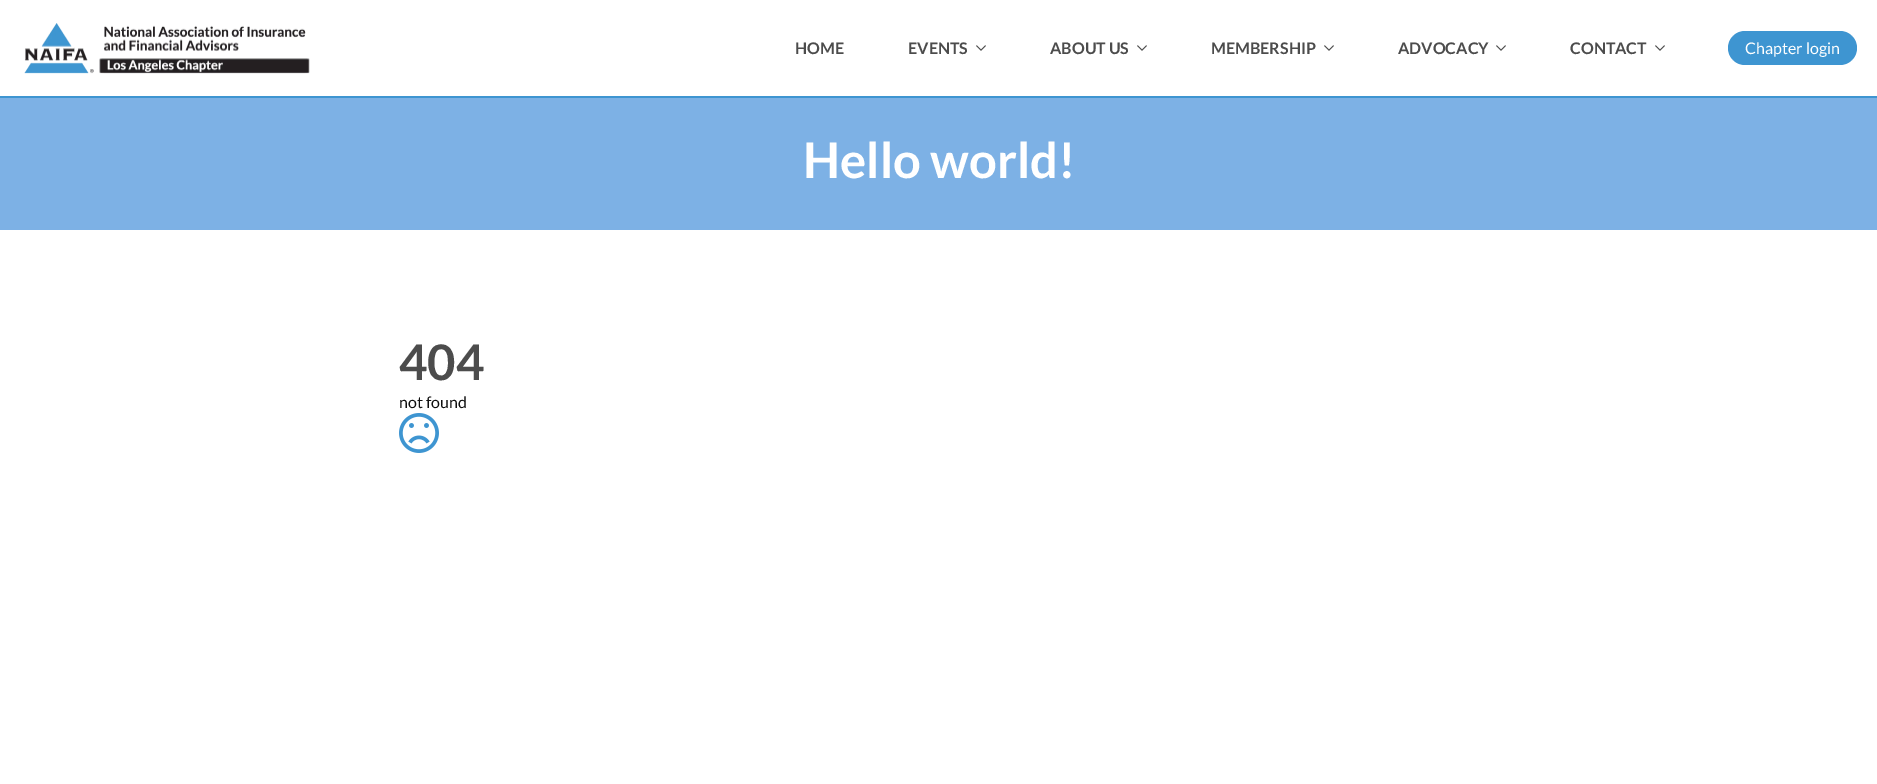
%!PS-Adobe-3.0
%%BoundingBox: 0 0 1877 784
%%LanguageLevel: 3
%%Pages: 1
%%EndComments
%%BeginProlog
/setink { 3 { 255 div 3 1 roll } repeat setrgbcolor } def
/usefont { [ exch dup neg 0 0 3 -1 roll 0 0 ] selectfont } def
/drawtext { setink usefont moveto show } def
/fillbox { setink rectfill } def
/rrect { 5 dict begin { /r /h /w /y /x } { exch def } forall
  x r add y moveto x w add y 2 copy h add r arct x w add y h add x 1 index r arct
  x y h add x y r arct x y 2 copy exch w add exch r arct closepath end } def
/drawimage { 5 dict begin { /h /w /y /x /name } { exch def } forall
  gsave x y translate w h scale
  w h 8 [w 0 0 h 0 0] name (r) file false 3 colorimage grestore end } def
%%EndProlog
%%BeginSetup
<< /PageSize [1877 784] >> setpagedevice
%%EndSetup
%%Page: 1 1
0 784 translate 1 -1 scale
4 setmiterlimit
0 0 1877 784 255 255 255 fillbox
(assets/img1.rgb) 24 23 286 51 drawimage
(HOME) 795 54 /Lato-Bold 16 76 76 76 drawtext
(EVENTS) 908 54 /Lato-Bold 16 76 76 76 drawtext
(assets/img2.rgb) 976 45 10 6 drawimage
(ABOUT US) 1050 54 /Lato-Bold 16 76 76 76 drawtext
(assets/img2.rgb) 1137 45 10 6 drawimage
(MEMBERSHIP) 1211 54 /Lato-Bold 16 76 76 76 drawtext
(assets/img2.rgb) 1324 45 10 6 drawimage
(ADVOCACY) 1398 54 /Lato-Bold 16 76 76 76 drawtext
(assets/img2.rgb) 1496 45 10 6 drawimage
(CONTACT) 1570 54 /Lato-Bold 16 76 76 76 drawtext
(assets/img2.rgb) 1655 45 10 6 drawimage
62 149 209 setink
1728 31 129 34 17 rrect fill
(Chapter login) 1745 54 /Lato-Regular 16 255 255 255 drawtext
0 96 1877 2 62 149 209 fillbox
0 98 1877 132 125 177 229 fillbox
(Hello world!) 803 178 /Lato-Bold 49 255 255 255 drawtext
(404) 399 380 /Lato-Bold 49 76 76 76 drawtext
(not found) 399 408 /Lato-Regular 16 16 16 16 drawtext
(assets/img3.rgb) 399 413 40 40 drawimage
showpage
%%EOF
